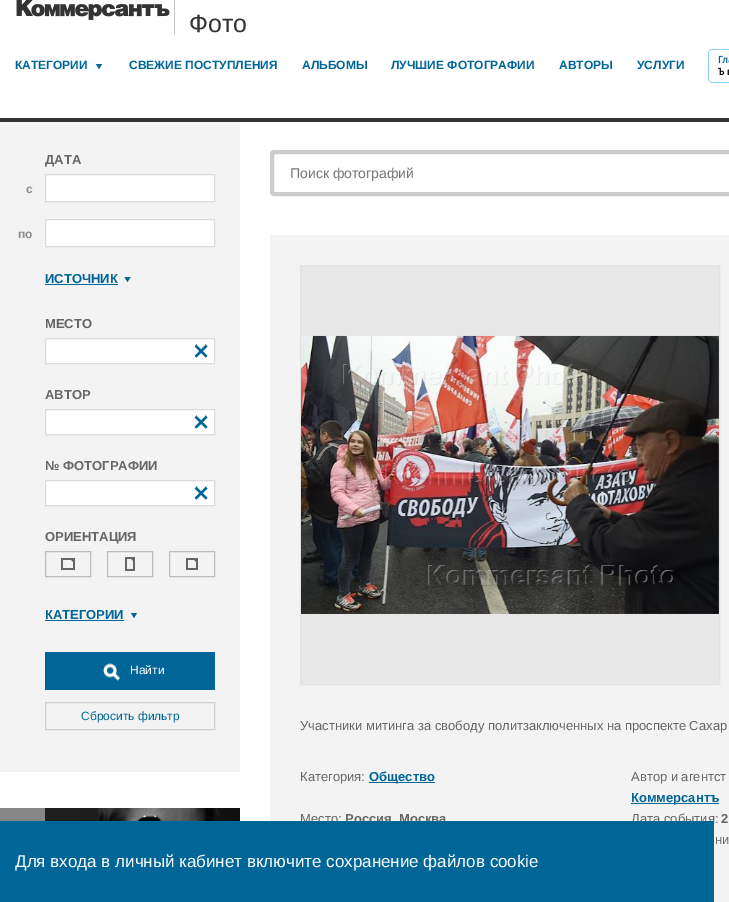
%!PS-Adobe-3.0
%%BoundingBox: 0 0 729 902
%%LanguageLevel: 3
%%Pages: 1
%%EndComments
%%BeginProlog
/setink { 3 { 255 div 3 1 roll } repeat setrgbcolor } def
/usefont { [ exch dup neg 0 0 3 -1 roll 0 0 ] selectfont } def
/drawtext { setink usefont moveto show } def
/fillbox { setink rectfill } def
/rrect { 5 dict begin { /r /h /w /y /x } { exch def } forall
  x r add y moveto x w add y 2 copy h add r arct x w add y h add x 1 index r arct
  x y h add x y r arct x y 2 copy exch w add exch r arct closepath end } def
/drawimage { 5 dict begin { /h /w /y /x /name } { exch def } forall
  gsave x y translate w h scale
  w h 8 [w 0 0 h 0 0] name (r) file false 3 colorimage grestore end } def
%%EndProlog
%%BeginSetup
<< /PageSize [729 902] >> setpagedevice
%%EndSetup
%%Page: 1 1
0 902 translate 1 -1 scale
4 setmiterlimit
0 0 729 902 255 255 255 fillbox
(assets/img1.rgb) 16 0 154 20 drawimage
174 0 1 35 201 201 201 fillbox
(Фото) 189 32 /LiberationSans-Regular 25 51 51 51 drawtext
(КАТЕГОРИИ) 15 69 /LiberationSans-Bold 12 0 102 151 drawtext
96 64 moveto 102 64 lineto 99 69 lineto closepath fill
(СВЕЖИЕ ПОСТУПЛЕНИЯ) 129 69 /LiberationSans-Bold 12 0 102 151 drawtext
(АЛЬБОМЫ) 302 69 /LiberationSans-Bold 12 0 102 151 drawtext
(ЛУЧШИЕ ФОТОГРАФИИ) 391 69 /LiberationSans-Bold 12 0 102 151 drawtext
(АВТОРЫ) 559 69 /LiberationSans-Bold 12 0 102 151 drawtext
(УСЛУГИ) 637 69 /LiberationSans-Bold 12 0 102 151 drawtext
(assets/img2.rgb) 708 49 21 34 drawimage
0 118 729 4 51 51 51 fillbox
0 122 240 650 243 243 243 fillbox
(ДАТА) 45 164 /LiberationSans-Bold 13 102 102 102 drawtext
(с) 26 193 /LiberationSans-Bold 12 140 140 140 drawtext
255 255 255 setink
45.5 174.5 moveto 214.5 174.5 lineto 214.5 201.5 lineto 45.5 201.5 lineto closepath gsave fill grestore
220 220 220 setink
stroke
(по) 18 238 /LiberationSans-Bold 12 140 140 140 drawtext
255 255 255 setink
45.5 219.5 moveto 214.5 219.5 lineto 214.5 246.5 lineto 45.5 246.5 lineto closepath gsave fill grestore
220 220 220 setink
stroke
(ИСТОЧНИК) 45 283 /LiberationSans-Bold 13 0 102 151 drawtext
45 284 73 1 0 102 151 fillbox
124.5 277 moveto 130.5 277 lineto 127.5 282 lineto closepath fill
(МЕСТО) 45 328 /LiberationSans-Bold 13 102 102 102 drawtext
255 255 255 setink
45.5 338.5 moveto 214.5 338.5 lineto 214.5 363.5 lineto 45.5 363.5 lineto closepath gsave fill grestore
220 220 220 setink
stroke
(assets/img3.rgb) 194 344 14 14 drawimage
(АВТОР) 45 399 /LiberationSans-Bold 13 102 102 102 drawtext
255 255 255 setink
45.5 409.5 moveto 214.5 409.5 lineto 214.5 434.5 lineto 45.5 434.5 lineto closepath gsave fill grestore
220 220 220 setink
stroke
(assets/img3.rgb) 194 415 14 14 drawimage
(№ ФОТОГРАФИИ) 45 470 /LiberationSans-Bold 13 102 102 102 drawtext
255 255 255 setink
45.5 480.5 moveto 214.5 480.5 lineto 214.5 505.5 lineto 45.5 505.5 lineto closepath gsave fill grestore
220 220 220 setink
stroke
(assets/img3.rgb) 194 486 14 14 drawimage
(ОРИЕНТАЦИЯ) 45 541 /LiberationSans-Bold 13 102 102 102 drawtext
187 187 187 setink
45.5 551.5 45 25 rectstroke
(assets/img4.rgb) 61 558 14 12 drawimage
107.5 551.5 45 25 rectstroke
(assets/img5.rgb) 125 557 10 14 drawimage
169.5 551.5 45 25 rectstroke
(assets/img6.rgb) 186 558 12 12 drawimage
(КАТЕГОРИИ) 45 619 /LiberationSans-Bold 13 0 102 151 drawtext
45 620 79 1 0 102 151 fillbox
131 613 moveto 137 613 lineto 134 618 lineto closepath fill
45 652 170 38 0 102 151 fillbox
(assets/img7.rgb) 103 663 17 18 drawimage
(Найти) 130 674 /LiberationSans-Regular 12 255 255 255 drawtext
207 207 207 setink
45.5 702.5 169 27 rectstroke
(Сбросить фильтр) 81 720 /LiberationSans-Regular 12 0 102 151 drawtext
(assets/img8.rgb) 0 808 240 13 drawimage
204 204 204 setink
4 setlinewidth
272 152 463 42 2 rrect stroke
(Поиск фотографий) 290 178 /LiberationSans-Regular 14 117 117 117 drawtext
270 235 459 667 243 243 243 fillbox
231 231 231 setink
300.5 265.5 moveto 719.5 265.5 lineto 719.5 684.5 lineto 300.5 684.5 lineto closepath gsave fill grestore
226 226 226 setink
1 setlinewidth
stroke
(assets/img9.rgb) 301 335 418 279 drawimage
(Участники митинга за свободу политзаключенных на проспекте Сахар) 300 730 /LiberationSans-Regular 13 102 102 102 drawtext
(Категория:) 300 781 /LiberationSans-Regular 13 102 102 102 drawtext
369 782 66 1 0 102 151 fillbox
(Общество) 369 781 /LiberationSans-Bold 13 0 102 151 drawtext
(Автор и агентст) 631 781 /LiberationSans-Regular 13 102 102 102 drawtext
631 803 88 1 0 102 151 fillbox
(Коммерсантъ) 631 802 /LiberationSans-Bold 13 0 102 151 drawtext
(Место:) 300 823 /LiberationSans-Regular 13 102 102 102 drawtext
(Россия, Москва) 345 823 /LiberationSans-Bold 13 102 102 102 drawtext
(Дата события:) 631 823 /LiberationSans-Regular 13 102 102 102 drawtext
(2) 721 823 /LiberationSans-Bold 13 102 102 102 drawtext
(ни) 715 844 /LiberationSans-Regular 13 102 102 102 drawtext
0 821 714 81 0 102 151 fillbox
(Для входа в личный кабинет включите сохранение файлов cookie) 15 867 /LiberationSans-Regular 17 255 255 255 drawtext
showpage
%%EOF
